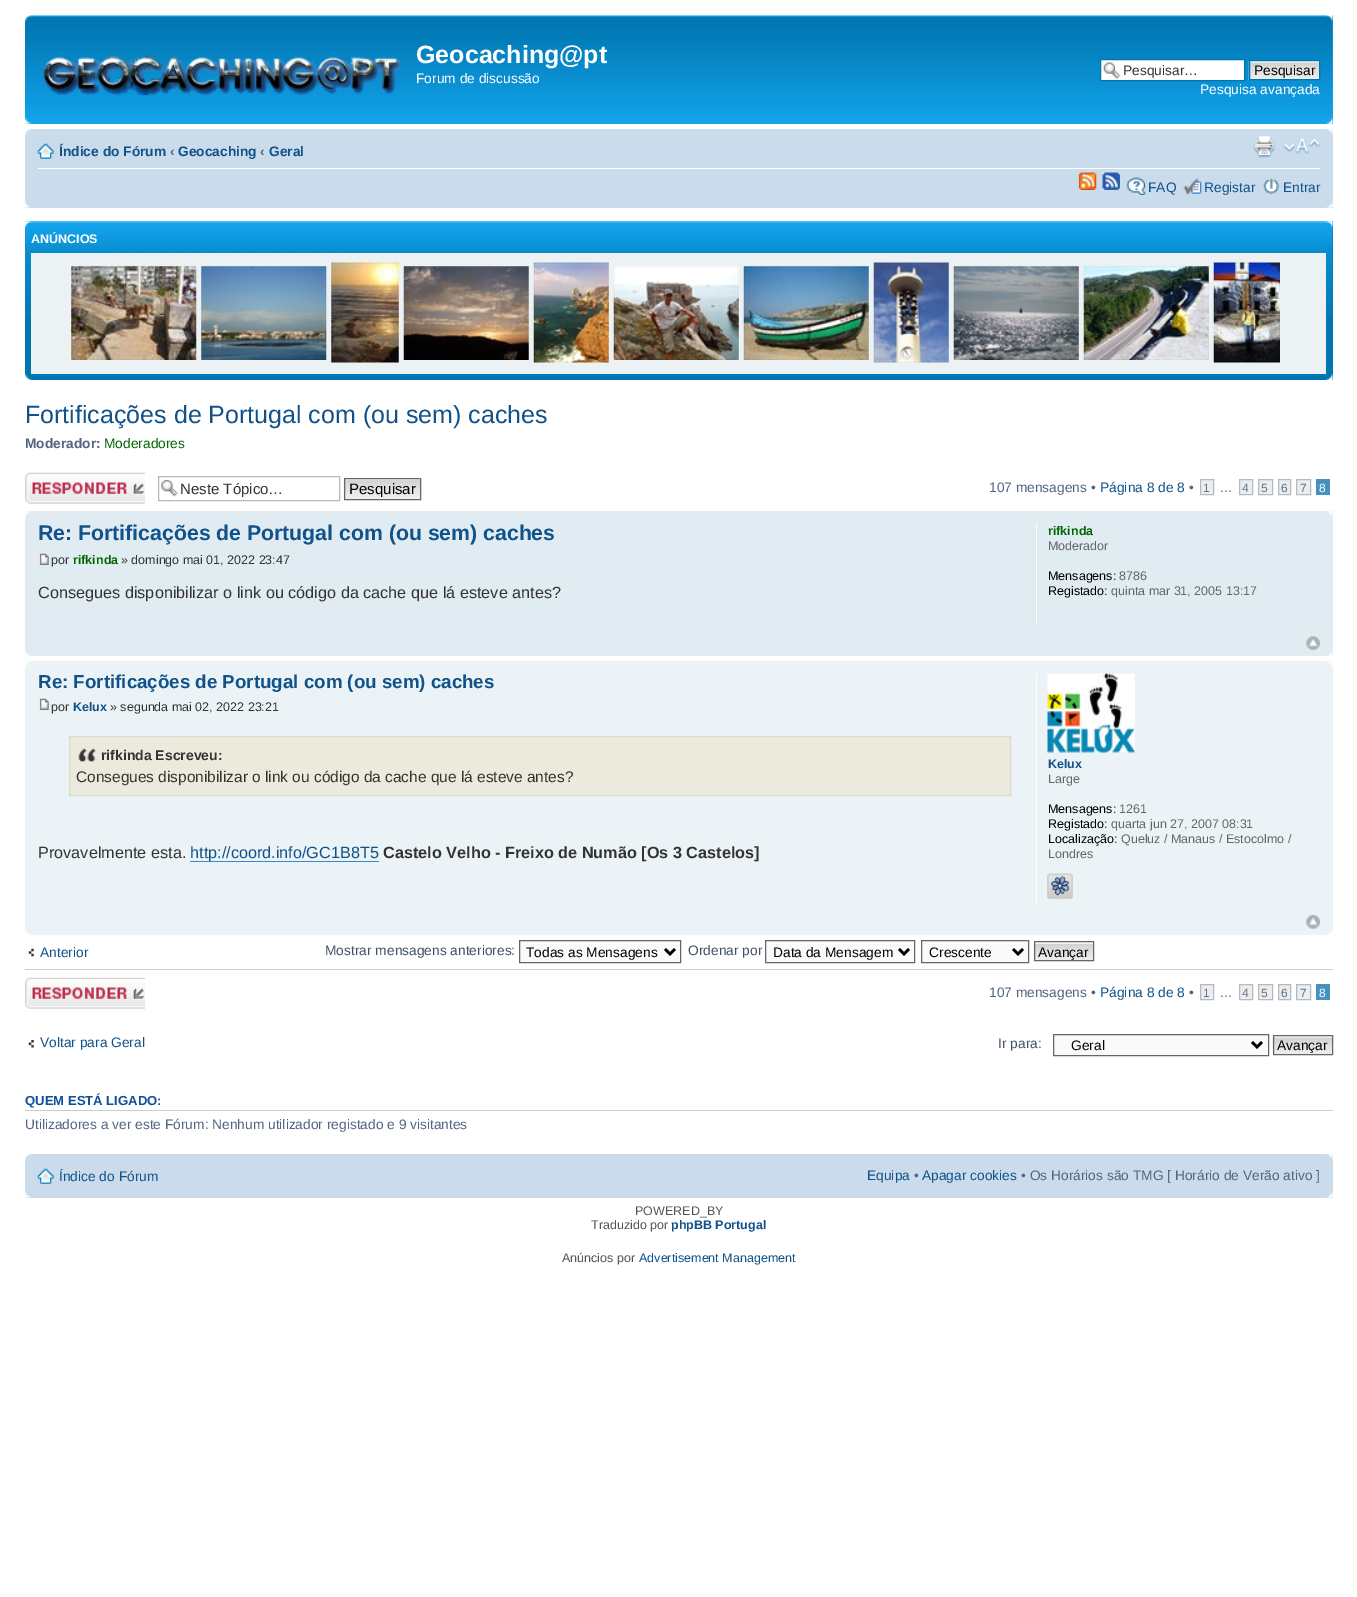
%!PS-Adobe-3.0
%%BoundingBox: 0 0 1357 1597
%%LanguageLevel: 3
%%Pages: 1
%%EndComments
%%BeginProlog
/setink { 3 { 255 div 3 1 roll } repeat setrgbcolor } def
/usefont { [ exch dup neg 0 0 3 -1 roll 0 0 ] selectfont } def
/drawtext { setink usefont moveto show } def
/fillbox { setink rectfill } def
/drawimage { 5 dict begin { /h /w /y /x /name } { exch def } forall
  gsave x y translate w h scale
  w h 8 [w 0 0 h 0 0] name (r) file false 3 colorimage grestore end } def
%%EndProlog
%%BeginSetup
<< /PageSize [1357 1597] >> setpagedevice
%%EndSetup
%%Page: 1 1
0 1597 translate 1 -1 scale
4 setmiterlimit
0 0 1357 1597 255 255 255 fillbox
25 15 1308 109 18 163 235 fillbox
(assets/img1.rgb) 25 15 1308 102 drawimage
(assets/img2.rgb) 25 15 7 7 drawimage
(assets/img3.rgb) 1326 15 7 7 drawimage
(assets/img4.rgb) 43 54 357 42 drawimage
(Geocaching@pt) 416 63 /LiberationSans-Bold 25 255 255 255 drawtext
(Forum de discussão) 416 83 /LiberationSans-Regular 13.75 255 255 255 drawtext
1101 60 143 20 255 255 255 fillbox
(assets/img5.rgb) 1103 62 18 17 drawimage
0 117 176 setink
1100.5 59.5 144 21 rectstroke
(Pesquisar…) 1123 75 /LiberationSans-Regular 13.75 51 51 51 drawtext
(assets/img6.rgb) 1248 61 71 19 drawimage
0 117 176 setink
1249.5 60.5 70 19 rectstroke
(Pesquisar) 1254 75 /LiberationSans-Regular 13.75 0 0 0 drawtext
(Pesquisa avançada) 1200 94 /LiberationSans-Regular 13.75 255 255 255 drawtext
(assets/img7.rgb) 25 117 7 7 drawimage
(assets/img8.rgb) 1326 117 7 7 drawimage
25 129 1308 79 202 220 235 fillbox
(assets/img9.rgb) 25 129 7 6 drawimage
(assets/img10.rgb) 1326 129 7 6 drawimage
38 168 1282 1 255 255 255 fillbox
(assets/img11.rgb) 37 143 17 16 drawimage
(Índice do Fórum) 59 156 /LiberationSans-Bold 13.75 16 82 137 drawtext
(‹) 170 156 /LiberationSans-Bold 13.75 83 100 130 drawtext
(Geocaching) 178 156 /LiberationSans-Bold 13.75 16 82 137 drawtext
(‹) 260 156 /LiberationSans-Bold 13.75 83 100 130 drawtext
(Geral) 269 156 /LiberationSans-Bold 13.75 16 82 137 drawtext
(assets/img12.rgb) 1253 136 22 22 drawimage
(assets/img13.rgb) 1283 138 37 16 drawimage
(assets/img14.rgb) 1078 172 19 18 drawimage
(assets/img15.rgb) 1102 172 18 18 drawimage
(assets/img16.rgb) 1126 177 20 18 drawimage
(FAQ) 1148 192 /LiberationSans-Regular 13.75 16 82 137 drawtext
(assets/img17.rgb) 1183 178 19 17 drawimage
(Registar) 1204 192 /LiberationSans-Regular 13.75 16 82 137 drawtext
(assets/img18.rgb) 1263 178 16 16 drawimage
(Entrar) 1283 192 /LiberationSans-Regular 13.75 16 82 137 drawtext
(assets/img19.rgb) 25 201 6 7 drawimage
(assets/img20.rgb) 1326 201 7 7 drawimage
25 221 1308 159 0 118 177 fillbox
(assets/img21.rgb) 25 221 1308 97 drawimage
(assets/img22.rgb) 25 221 7 7 drawimage
(assets/img23.rgb) 1326 221 7 7 drawimage
(ANÚNCIOS) 31 243 /LiberationSans-Bold 12.5 255 255 255 drawtext
31 253 1295 121 236 241 243 fillbox
(assets/img24.rgb) 71 262 1209 101 drawimage
(assets/img25.rgb) 25 373 7 7 drawimage
(assets/img26.rgb) 1326 373 7 7 drawimage
(Fortificações de Portugal com \(ou sem\) caches) 25 423 /LiberationSans-Regular 25 16 82 137 drawtext
(Moderador:) 25 448 /LiberationSans-Bold 13.75 83 100 130 drawtext
(Moderadores) 104 448 /LiberationSans-Regular 13.75 0 102 0 drawtext
(assets/img27.rgb) 25 472 120 32 drawimage
(assets/img28.rgb) 161 479 17 18 drawimage
180 186 192 setink
158.5 476.5 181 24 rectstroke
(Neste Tópico…) 180 494 /LiberationSans-Regular 15 51 51 51 drawtext
345 479 75 1 250 250 250 fillbox
(assets/img29.rgb) 343 480 79 20 drawimage
102 102 102 setink
344.5 478.5 76 21 rectstroke
(Pesquisar) 349 494 /LiberationSans-Regular 15 0 0 0 drawtext
(107 mensagens •) 989 492 /LiberationSans-Regular 13.75 83 100 130 drawtext
(Página 8 de 8) 1100 492 /LiberationSans-Regular 13.75 16 82 137 drawtext
(•) 1189 492 /LiberationSans-Regular 13.75 83 100 130 drawtext
236 237 238 setink
1200.5 479.5 moveto 1213.5 479.5 lineto 1213.5 494.5 lineto 1200.5 494.5 lineto closepath gsave fill grestore
180 186 192 setink
stroke
(1) 1203 492 /LiberationSans-Regular 12 92 117 140 drawtext
236 237 238 setink
1239.5 479.5 moveto 1252.5 479.5 lineto 1252.5 494.5 lineto 1239.5 494.5 lineto closepath gsave fill grestore
180 186 192 setink
stroke
(4) 1242 492 /LiberationSans-Regular 12 92 117 140 drawtext
236 237 238 setink
1258.5 479.5 moveto 1272.5 479.5 lineto 1272.5 494.5 lineto 1258.5 494.5 lineto closepath gsave fill grestore
180 186 192 setink
stroke
(5) 1261 492 /LiberationSans-Regular 12 92 117 140 drawtext
236 237 238 setink
1278.5 479.5 moveto 1290.5 479.5 lineto 1290.5 494.5 lineto 1278.5 494.5 lineto closepath gsave fill grestore
180 186 192 setink
stroke
(6) 1281 492 /LiberationSans-Regular 12 92 117 140 drawtext
236 237 238 setink
1296.5 479.5 moveto 1310.5 479.5 lineto 1310.5 494.5 lineto 1296.5 494.5 lineto closepath gsave fill grestore
180 186 192 setink
stroke
(7) 1300 492 /LiberationSans-Regular 12 92 117 140 drawtext
1316 479 14 16 70 146 191 fillbox
(8) 1319 492 /LiberationSans-Regular 12 255 255 255 drawtext
(...) 1220 492 /LiberationSans-Regular 13.75 83 100 130 drawtext
25 511 1308 145 225 235 242 fillbox
(assets/img30.rgb) 25 511 6 6 drawimage
(assets/img31.rgb) 1327 511 6 6 drawimage
(Re: Fortificações de Portugal com \(ou sem\) caches) 38 540 /LiberationSans-Bold 21.25 16 82 137 drawtext
(assets/img32.rgb) 39 553 10 12 drawimage
(por) 51 564 /LiberationSans-Regular 12.5 51 51 51 drawtext
(rifkinda) 73 564 /LiberationSans-Bold 12.5 0 102 0 drawtext
(» domingo mai 01, 2022 23:47) 121 564 /LiberationSans-Regular 12.5 51 51 51 drawtext
(Consegues disponibilizar o link ou código da cache que lá esteve antes?) 38 598 /LiberationSans-Regular 16.25 51 51 51 drawtext
1036 524 1 100 255 255 255 fillbox
(rifkinda) 1048 535 /LiberationSans-Bold 12.5 0 102 0 drawtext
(Moderador) 1048 550 /LiberationSans-Regular 12.5 102 102 102 drawtext
(Mensagens:) 1048 580 /LiberationSans-Regular 12.5 0 0 0 drawtext
(8786) 1119 580 /LiberationSans-Regular 12.5 102 102 102 drawtext
(Registado:) 1048 595 /LiberationSans-Regular 12.5 0 0 0 drawtext
(quinta mar 31, 2005 13:17) 1111 595 /LiberationSans-Regular 12.5 102 102 102 drawtext
(assets/img33.rgb) 1306 636 14 14 drawimage
(assets/img34.rgb) 25 650 6 6 drawimage
(assets/img35.rgb) 1326 650 7 6 drawimage
25 661 1308 274 236 243 247 fillbox
(assets/img36.rgb) 25 661 6 6 drawimage
(assets/img37.rgb) 1327 661 6 6 drawimage
(Re: Fortificações de Portugal com \(ou sem\) caches) 38 688 /LiberationSans-Bold 18.75 16 82 137 drawtext
(assets/img38.rgb) 39 698 10 12 drawimage
(por) 51 711 /LiberationSans-Regular 12.5 51 51 51 drawtext
(Kelux) 73 711 /LiberationSans-Bold 12.5 16 82 137 drawtext
(» segunda mai 02, 2022 23:21) 110 711 /LiberationSans-Regular 12.5 51 51 51 drawtext
70 737 940 58 235 234 221 fillbox
(assets/img39.rgb) 78 748 18 14 drawimage
219 219 206 setink
69.5 736.5 941 59 rectstroke
(rifkinda Escreveu:) 101 760 /LiberationSans-Bold 14 51 51 51 drawtext
(Consegues disponibilizar o link ou código da cache que lá esteve antes?) 76 782 /LiberationSans-Regular 15.45 51 51 51 drawtext
(Provavelmente esta.) 38 858 /LiberationSans-Regular 16.25 51 51 51 drawtext
190 861 189 1 54 138 210 fillbox
(http://coord.info/GC1B8T5) 190 858 /LiberationSans-Regular 16.25 16 82 137 drawtext
(Castelo Velho - Freixo de Numão [Os 3 Castelos]) 383 858 /LiberationSans-Bold 16.25 51 51 51 drawtext
1036 674 1 229 255 255 255 fillbox
(assets/img40.rgb) 1047 673 88 80 drawimage
(Kelux) 1048 768 /LiberationSans-Bold 12.5 16 82 137 drawtext
(Large) 1048 783 /LiberationSans-Regular 12.5 102 102 102 drawtext
(Mensagens:) 1048 813 /LiberationSans-Regular 12.5 0 0 0 drawtext
(1261) 1119 813 /LiberationSans-Regular 12.5 102 102 102 drawtext
(Registado:) 1048 828 /LiberationSans-Regular 12.5 0 0 0 drawtext
(quarta jun 27, 2007 08:31) 1111 828 /LiberationSans-Regular 12.5 102 102 102 drawtext
(Localização:) 1048 843 /LiberationSans-Regular 12.5 0 0 0 drawtext
(Queluz / Manaus / Estocolmo /) 1121 843 /LiberationSans-Regular 12.5 102 102 102 drawtext
(Londres) 1048 858 /LiberationSans-Regular 12.5 102 102 102 drawtext
(assets/img41.rgb) 1047 873 26 26 drawimage
(assets/img42.rgb) 1047 873 26 26 drawimage
(assets/img43.rgb) 1306 915 14 14 drawimage
(assets/img44.rgb) 25 929 6 6 drawimage
(assets/img45.rgb) 1327 930 6 5 drawimage
(assets/img46.rgb) 28 948 6 9 drawimage
(Anterior) 40 957 /LiberationSans-Regular 13.75 16 82 137 drawtext
(Mostrar mensagens anteriores:) 325 955 /LiberationSans-Regular 13.75 66 80 103 drawtext
250 250 250 setink
519.5 940.5 moveto 680.5 940.5 lineto 680.5 962.5 lineto 519.5 962.5 lineto closepath gsave fill grestore
102 102 102 setink
stroke
0 0 0 setink
2.5 setlinewidth
665 949 moveto 670 954 lineto 675 949 lineto stroke
(Todas as Mensagens) 526 957 /LiberationSans-Regular 13.75 0 0 0 drawtext
(Ordenar por) 688 955 /LiberationSans-Regular 13.75 66 80 103 drawtext
250 250 250 setink
765.5 940.5 moveto 914.5 940.5 lineto 914.5 962.5 lineto 765.5 962.5 lineto closepath gsave fill grestore
102 102 102 setink
1 setlinewidth
stroke
0 0 0 setink
2.5 setlinewidth
899 949 moveto 904 954 lineto 909 949 lineto stroke
(Data da Mensagem) 773 957 /LiberationSans-Regular 13.75 0 0 0 drawtext
250 250 250 setink
921.5 940.5 moveto 1028.5 940.5 lineto 1028.5 962.5 lineto 921.5 962.5 lineto closepath gsave fill grestore
102 102 102 setink
1 setlinewidth
stroke
0 0 0 setink
2.5 setlinewidth
1013 949 moveto 1018 954 lineto 1023 949 lineto stroke
(Crescente) 929 957 /LiberationSans-Regular 13.75 0 0 0 drawtext
1035 942 58 1 250 250 250 fillbox
(assets/img47.rgb) 1033 943 61 19 drawimage
102 102 102 setink
1 setlinewidth
1034.5 941.5 59 19 rectstroke
(Avançar) 1038 957 /LiberationSans-Regular 13.75 0 0 0 drawtext
25 969 1308 1 204 204 204 fillbox
(assets/img27.rgb) 25 977 120 32 drawimage
(107 mensagens •) 989 997 /LiberationSans-Regular 13.75 83 100 130 drawtext
(Página 8 de 8) 1100 997 /LiberationSans-Regular 13.75 16 82 137 drawtext
(•) 1189 997 /LiberationSans-Regular 13.75 83 100 130 drawtext
236 237 238 setink
1200.5 984.5 moveto 1213.5 984.5 lineto 1213.5 999.5 lineto 1200.5 999.5 lineto closepath gsave fill grestore
180 186 192 setink
stroke
(1) 1203 997 /LiberationSans-Regular 12 92 117 140 drawtext
236 237 238 setink
1239.5 984.5 moveto 1252.5 984.5 lineto 1252.5 999.5 lineto 1239.5 999.5 lineto closepath gsave fill grestore
180 186 192 setink
stroke
(4) 1242 997 /LiberationSans-Regular 12 92 117 140 drawtext
236 237 238 setink
1258.5 984.5 moveto 1272.5 984.5 lineto 1272.5 999.5 lineto 1258.5 999.5 lineto closepath gsave fill grestore
180 186 192 setink
stroke
(5) 1261 997 /LiberationSans-Regular 12 92 117 140 drawtext
236 237 238 setink
1278.5 984.5 moveto 1290.5 984.5 lineto 1290.5 999.5 lineto 1278.5 999.5 lineto closepath gsave fill grestore
180 186 192 setink
stroke
(6) 1281 997 /LiberationSans-Regular 12 92 117 140 drawtext
236 237 238 setink
1296.5 984.5 moveto 1310.5 984.5 lineto 1310.5 999.5 lineto 1296.5 999.5 lineto closepath gsave fill grestore
180 186 192 setink
stroke
(7) 1300 997 /LiberationSans-Regular 12 92 117 140 drawtext
1316 984 14 16 70 146 191 fillbox
(8) 1319 997 /LiberationSans-Regular 12 255 255 255 drawtext
(...) 1220 997 /LiberationSans-Regular 13.75 83 100 130 drawtext
(assets/img48.rgb) 28 1040 6 8 drawimage
(Voltar para Geral) 40 1047 /LiberationSans-Regular 13.75 16 82 137 drawtext
(Ir para:) 998 1048 /LiberationSans-Regular 13.75 66 80 103 drawtext
250 250 250 setink
1053.5 1034.5 moveto 1268.5 1034.5 lineto 1268.5 1055.5 lineto 1053.5 1055.5 lineto closepath gsave fill grestore
102 102 102 setink
stroke
0 0 0 setink
2.5 setlinewidth
1252 1042 moveto 1257 1047 lineto 1262 1042 lineto stroke
(Geral) 1071 1050 /LiberationSans-Regular 13.75 0 0 0 drawtext
1274 1036 58 1 250 250 250 fillbox
(assets/img49.rgb) 1272 1037 60 18 drawimage
102 102 102 setink
1 setlinewidth
1273.5 1035.5 59 19 rectstroke
(Avançar) 1277 1050 /LiberationSans-Regular 13.75 0 0 0 drawtext
25 1110 1308 1 204 204 204 fillbox
(QUEM ESTÁ LIGADO:) 25 1105 /LiberationSans-Bold 13.1 17 80 152 drawtext
(Utilizadores a ver este Fórum: Nenhum utilizador registado e 9 visitantes) 25 1129 /LiberationSans-Regular 13.75 83 100 130 drawtext
25 1154 1308 44 202 220 235 fillbox
(assets/img9.rgb) 25 1154 7 6 drawimage
(assets/img10.rgb) 1326 1154 7 6 drawimage
(assets/img50.rgb) 37 1168 17 16 drawimage
(Índice do Fórum) 59 1181 /LiberationSans-Regular 13.75 16 82 137 drawtext
(Equipa) 867 1180 /LiberationSans-Regular 13.75 16 82 137 drawtext
(•) 914 1180 /LiberationSans-Regular 13.75 83 100 130 drawtext
(Apagar cookies) 922 1180 /LiberationSans-Regular 13.75 16 82 137 drawtext
(• Os Horários são TMG [ Horário de Verão ativo ]) 1021 1180 /LiberationSans-Regular 13.75 83 100 130 drawtext
(assets/img19.rgb) 25 1191 6 7 drawimage
(assets/img20.rgb) 1326 1191 7 7 drawimage
(POWERED_BY) 635 1215 /LiberationSans-Regular 12.5 85 85 85 drawtext
(Traduzido por) 591 1229 /LiberationSans-Regular 12.5 85 85 85 drawtext
(phpBB Portugal) 671 1229 /LiberationSans-Bold 12.5 16 82 137 drawtext
(Anúncios por) 562 1262 /LiberationSans-Regular 12.5 85 85 85 drawtext
(Advertisement Management) 639 1262 /LiberationSans-Regular 12.5 16 82 137 drawtext
showpage
%%EOF
